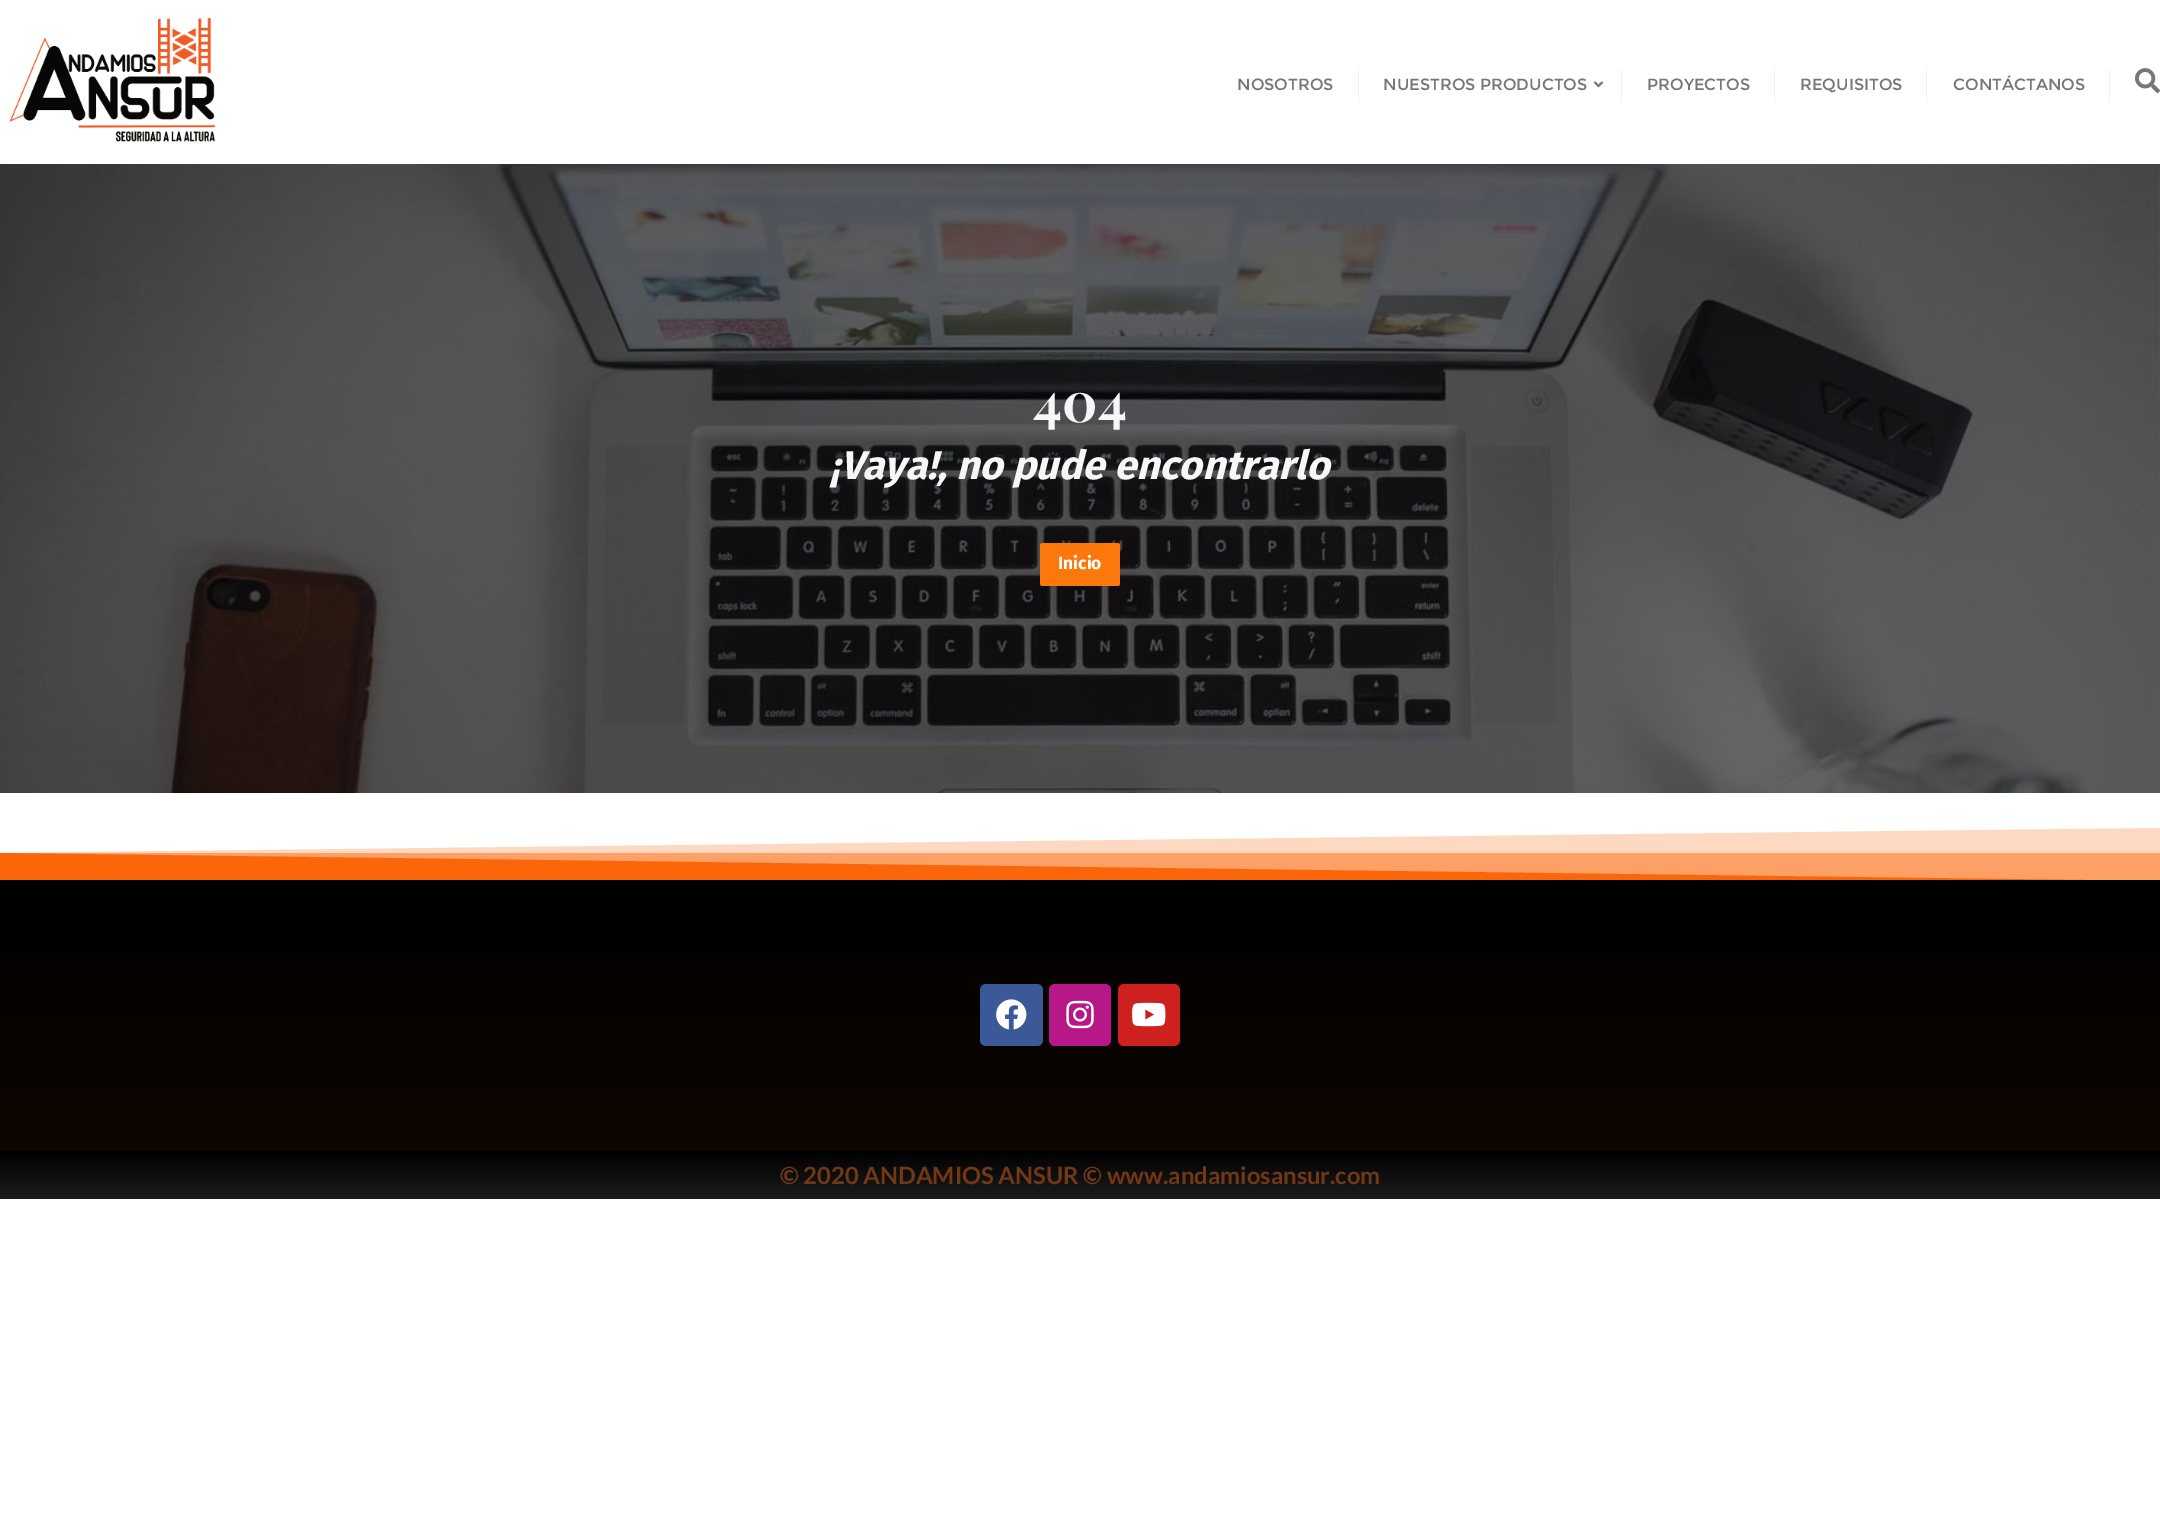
%!PS-Adobe-3.0
%%BoundingBox: 0 0 2160 1533
%%LanguageLevel: 3
%%Pages: 1
%%EndComments
%%BeginProlog
/setink { 3 { 255 div 3 1 roll } repeat setrgbcolor } def
/usefont { [ exch dup neg 0 0 3 -1 roll 0 0 ] selectfont } def
/drawtext { setink usefont moveto show } def
/fillbox { setink rectfill } def
/setalpha { dup .setfillconstantalpha .setstrokeconstantalpha } def
/rrect { 5 dict begin { /r /h /w /y /x } { exch def } forall
  x r add y moveto x w add y 2 copy h add r arct x w add y h add x 1 index r arct
  x y h add x y r arct x y 2 copy exch w add exch r arct closepath end } def
/drawimage { 5 dict begin { /h /w /y /x /name } { exch def } forall
  gsave x y translate w h scale
  w h 8 [w 0 0 h 0 0] name (r) file false 3 colorimage grestore end } def
%%EndProlog
%%BeginSetup
<< /PageSize [2160 1533] /PageUsesTransparency true >> setpagedevice
%%EndSetup
%%Page: 1 1
0 .pushpdf14devicefilter
0 1533 translate 1 -1 scale
4 setmiterlimit
0 0 2160 1533 255 255 255 fillbox
4 853 2156 27 254 179 133 fillbox
(assets/img1.rgb) 9 18 207 124 drawimage
(NOSOTROS) 1237 90 /Montserrat-Regular 16.25 119 119 119 drawtext
1358 68 1 33 241 241 241 fillbox
(NUESTROS PRODUCTOS) 1383 90 /Montserrat-Regular 16.25 119 119 119 drawtext
(assets/img2.rgb) 1593 81 11 7 drawimage
1621 68 1 33 241 241 241 fillbox
(PROYECTOS) 1647 90 /Montserrat-Regular 16.25 119 119 119 drawtext
1774 68 1 33 241 241 241 fillbox
(REQUISITOS) 1800 90 /Montserrat-Regular 16.25 119 119 119 drawtext
1926 68 1 33 241 241 241 fillbox
(CONTÁCTANOS) 1953 90 /Montserrat-Regular 16.25 119 119 119 drawtext
2109 68 1 33 241 241 241 fillbox
(assets/img3.rgb) 2135 68 25 26 drawimage
(assets/img4.rgb) 0 164 2160 629 drawimage
(404) 1033 422 /PlayfairDisplay-Bold 55 247 247 247 drawtext
(¡Vaya!, no pude encontrarlo) 830 479 /FiraSans-BoldItalic 40 247 247 247 drawtext
252 120 12 setink
1040 543 80 43 2.5 rrect fill
(Inicio) 1058 569 /FiraSans-Bold 17.5 255 255 255 drawtext
252 102 11 setink
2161 881 moveto -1 881 lineto -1 853 lineto closepath fill
0.25 setalpha
-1 881 moveto 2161 881 lineto 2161 828 lineto -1 853 lineto closepath fill
1 setalpha
gsave 0 880 moveto 2160 880 lineto 2160 1150 lineto 0 1150 lineto closepath clip newpath
<< /ShadingType 2 /ColorSpace /DeviceRGB /Coords [1080 880 1080 1150] /Extend [true true] /Function << /FunctionType 2 /Domain [0 1] /C0 [0 0 0] /C1 [0.055 0.024 0] /N 1 >> >> shfill grestore
59 89 152 setink
980 984 63 62 6 rrect fill
(assets/img5.rgb) 996 999 31 31 drawimage
183 24 136 setink
1049 984 62 62 6 rrect fill
(assets/img6.rgb) 1066 1000 28 29 drawimage
205 32 31 setink
1118 984 62 62 6 rrect fill
(assets/img7.rgb) 1132 1002 34 25 drawimage
gsave 0 1150 moveto 2160 1150 lineto 2160 1199 lineto 0 1199 lineto closepath clip newpath
<< /ShadingType 2 /ColorSpace /DeviceRGB /Coords [1080 1150 1080 1199] /Extend [true true] /Function << /FunctionType 2 /Domain [0 1] /C0 [0 0 0] /C1 [0.11 0.11 0.11] /N 1 >> >> shfill grestore
(© 2020 ANDAMIOS ANSUR © www.andamiosansur.com) 780 1184 /Lato-Bold 23.75 114 55 20 drawtext
.poppdf14devicefilter showpage
%%EOF
